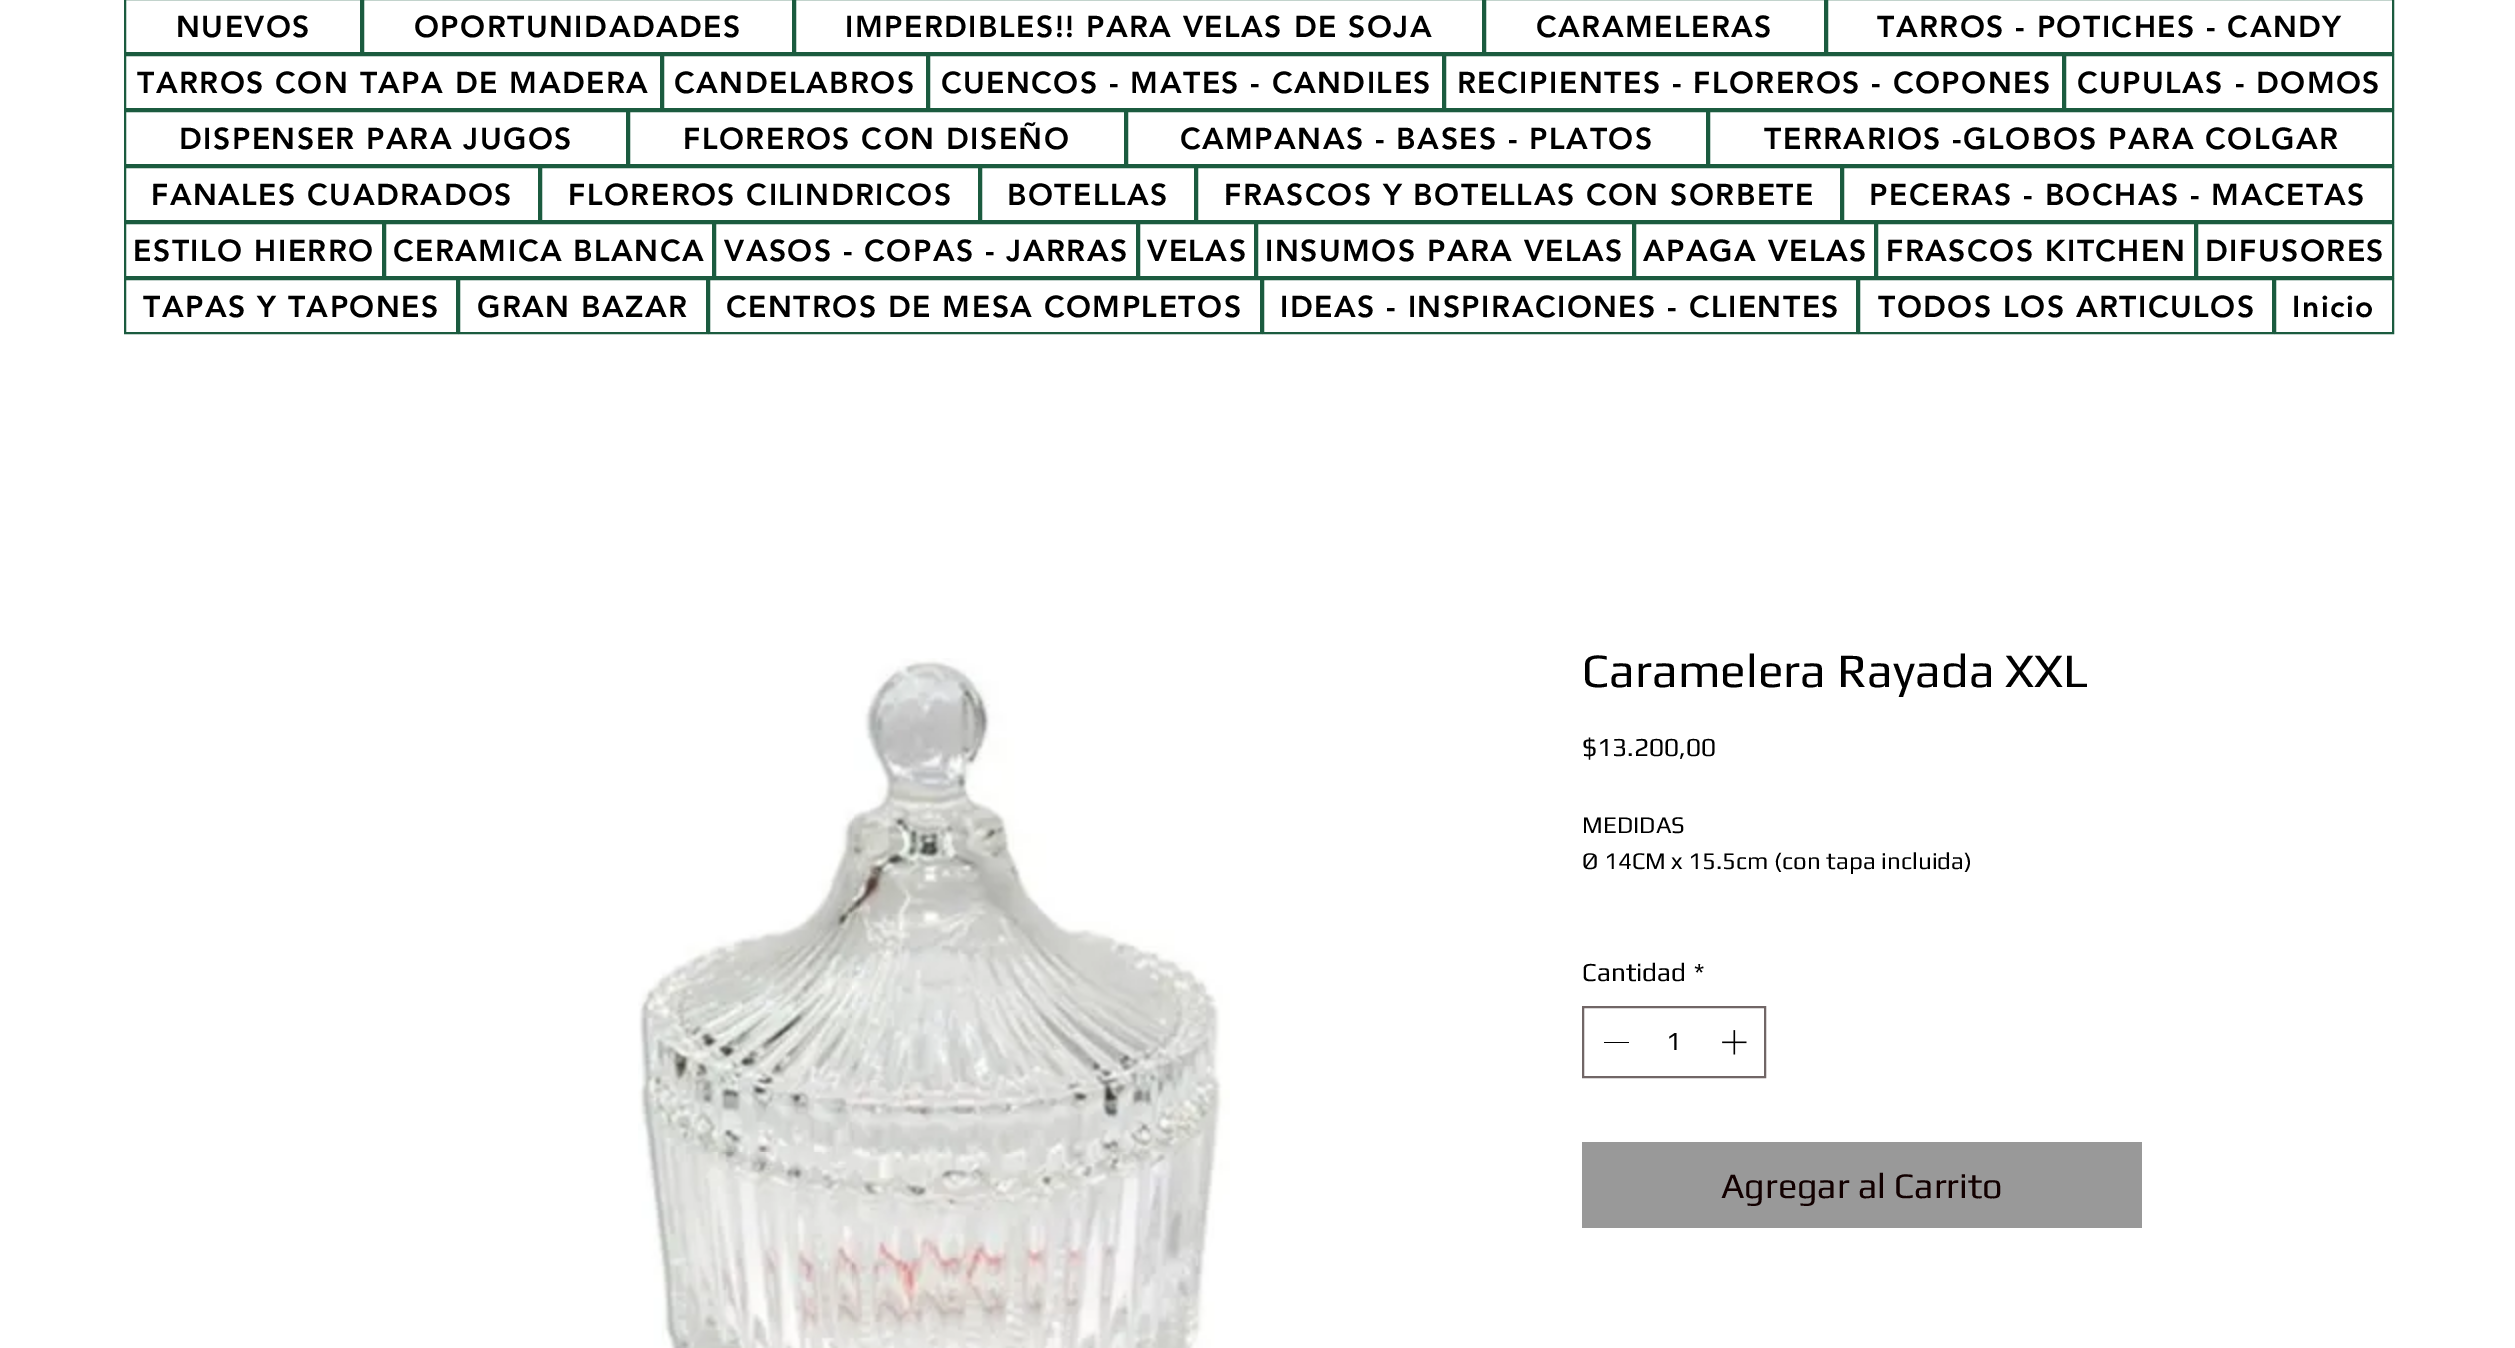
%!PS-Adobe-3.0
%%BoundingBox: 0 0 2515 1348
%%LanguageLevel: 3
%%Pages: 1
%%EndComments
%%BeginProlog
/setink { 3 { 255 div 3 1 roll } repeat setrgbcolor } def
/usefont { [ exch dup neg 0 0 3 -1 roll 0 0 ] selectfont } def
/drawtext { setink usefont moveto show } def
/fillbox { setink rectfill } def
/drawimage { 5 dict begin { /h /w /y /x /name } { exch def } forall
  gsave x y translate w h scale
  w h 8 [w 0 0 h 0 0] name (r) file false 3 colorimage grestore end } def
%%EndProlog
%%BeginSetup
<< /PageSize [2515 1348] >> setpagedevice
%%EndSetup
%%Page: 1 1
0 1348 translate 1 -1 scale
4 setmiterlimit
0 0 2515 1348 255 255 255 fillbox
27 91 63 setink
2 setlinewidth
125 -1 236 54 rectstroke
/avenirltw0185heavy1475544-Black 30 usefont
0 0 0 setink
176 37 moveto 1.5 0 (NUEVOS) ashow
27 91 63 setink
363 -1 430 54 rectstroke
0 0 0 setink
414 37 moveto 1.5 0 (OPORTUNIDADADES) ashow
27 91 63 setink
795 -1 688 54 rectstroke
0 0 0 setink
845 37 moveto 1.5 0 (IMPERDIBLES!! PARA VELAS DE SOJA) ashow
27 91 63 setink
1485 -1 340 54 rectstroke
0 0 0 setink
1536 37 moveto 1.5 0 (CARAMELERAS) ashow
27 91 63 setink
1827 -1 566 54 rectstroke
0 0 0 setink
1877 37 moveto 1.5 0 (TARROS - POTICHES - CANDY) ashow
27 91 63 setink
125 55 536 54 rectstroke
0 0 0 setink
137 93 moveto 1.5 0 (TARROS CON TAPA DE MADERA) ashow
27 91 63 setink
663 55 264 54 rectstroke
0 0 0 setink
674 93 moveto 1.5 0 (CANDELABROS) ashow
27 91 63 setink
929 55 514 54 rectstroke
0 0 0 setink
941 93 moveto 1.5 0 (CUENCOS - MATES - CANDILES) ashow
27 91 63 setink
1445 55 618 54 rectstroke
0 0 0 setink
1457 93 moveto 1.5 0 (RECIPIENTES - FLOREROS - COPONES) ashow
27 91 63 setink
2065 55 328 54 rectstroke
0 0 0 setink
2077 93 moveto 1.5 0 (CUPULAS - DOMOS) ashow
27 91 63 setink
125 111 502 54 rectstroke
0 0 0 setink
179 149 moveto 1.5 0 (DISPENSER PARA JUGOS) ashow
27 91 63 setink
629 111 496 54 rectstroke
0 0 0 setink
683 149 moveto 1.5 0 (FLOREROS CON DISEÑO) ashow
27 91 63 setink
1127 111 580 54 rectstroke
0 0 0 setink
1180 149 moveto 1.5 0 (CAMPANAS - BASES - PLATOS) ashow
27 91 63 setink
1709 111 684 54 rectstroke
0 0 0 setink
1764 149 moveto 1.5 0 (TERRARIOS -GLOBOS PARA COLGAR) ashow
27 91 63 setink
125 167 414 54 rectstroke
0 0 0 setink
151 205 moveto 1.5 0 (FANALES CUADRADOS) ashow
27 91 63 setink
541 167 438 54 rectstroke
0 0 0 setink
568 205 moveto 1.5 0 (FLOREROS CILINDRICOS) ashow
27 91 63 setink
981 167 214 54 rectstroke
0 0 0 setink
1007 205 moveto 1.5 0 (BOTELLAS) ashow
27 91 63 setink
1197 167 644 54 rectstroke
0 0 0 setink
1224 205 moveto 1.5 0 (FRASCOS Y BOTELLAS CON SORBETE) ashow
27 91 63 setink
1843 167 550 54 rectstroke
0 0 0 setink
1869 205 moveto 1.5 0 (PECERAS - BOCHAS - MACETAS) ashow
27 91 63 setink
125 223 258 54 rectstroke
0 0 0 setink
133 261 moveto 1.5 0 (ESTILO HIERRO) ashow
27 91 63 setink
385 223 328 54 rectstroke
0 0 0 setink
393 261 moveto 1.5 0 (CERAMICA BLANCA) ashow
27 91 63 setink
715 223 422 54 rectstroke
0 0 0 setink
724 261 moveto 1.5 0 (VASOS - COPAS - JARRAS) ashow
27 91 63 setink
1139 223 116 54 rectstroke
0 0 0 setink
1147 261 moveto 1.5 0 (VELAS) ashow
27 91 63 setink
1257 223 376 54 rectstroke
0 0 0 setink
1265 261 moveto 1.5 0 (INSUMOS PARA VELAS) ashow
27 91 63 setink
1635 223 240 54 rectstroke
0 0 0 setink
1643 261 moveto 1.5 0 (APAGA VELAS) ashow
27 91 63 setink
1877 223 318 54 rectstroke
0 0 0 setink
1886 261 moveto 1.5 0 (FRASCOS KITCHEN) ashow
27 91 63 setink
2197 223 196 54 rectstroke
0 0 0 setink
2205 261 moveto 1.5 0 (DIFUSORES) ashow
27 91 63 setink
125 279 332 54 rectstroke
0 0 0 setink
143 317 moveto 1.5 0 (TAPAS Y TAPONES) ashow
27 91 63 setink
459 279 248 54 rectstroke
0 0 0 setink
477 317 moveto 1.5 0 (GRAN BAZAR) ashow
27 91 63 setink
709 279 552 54 rectstroke
0 0 0 setink
726 317 moveto 1.5 0 (CENTROS DE MESA COMPLETOS) ashow
27 91 63 setink
1263 279 594 54 rectstroke
0 0 0 setink
1280 317 moveto 1.5 0 (IDEAS - INSPIRACIONES - CLIENTES) ashow
27 91 63 setink
1859 279 414 54 rectstroke
0 0 0 setink
1878 317 moveto 1.5 0 (TODOS LOS ARTICULOS) ashow
27 91 63 setink
2275 279 118 54 rectstroke
0 0 0 setink
2292 317 moveto 1.5 0 (Inicio) ashow
(assets/img1.rgb) 638 658 592 690 drawimage
(Caramelera Rayada XXL) 1582 687 /Play-Regular 48 0 0 0 drawtext
($13.200,00) 1582 756 /Play-Regular 26 0 0 0 drawtext
(MEDIDAS) 1582 833 /Play-Regular 24 0 0 0 drawtext
(Ø 14CM x 15.5cm \(con tapa incluida\)) 1582 869 /Play-Regular 24 0 0 0 drawtext
(Cantidad) 1582 981 /Play-Regular 26 0 0 0 drawtext
(*) 1694 981 /Play-Regular 26 0 0 0 drawtext
113 102 102 setink
1583 1007 182 70 rectstroke
1604 1042 25 1 0 0 0 fillbox
(1) 1666 1050 /Play-Regular 26 0 0 0 drawtext
(assets/img2.rgb) 1722 1030 25 25 drawimage
1582 1142 560 86 153 153 153 fillbox
(Agregar al Carrito) 1721 1198 /Play-Regular 36 18 0 0 drawtext
showpage
%%EOF
